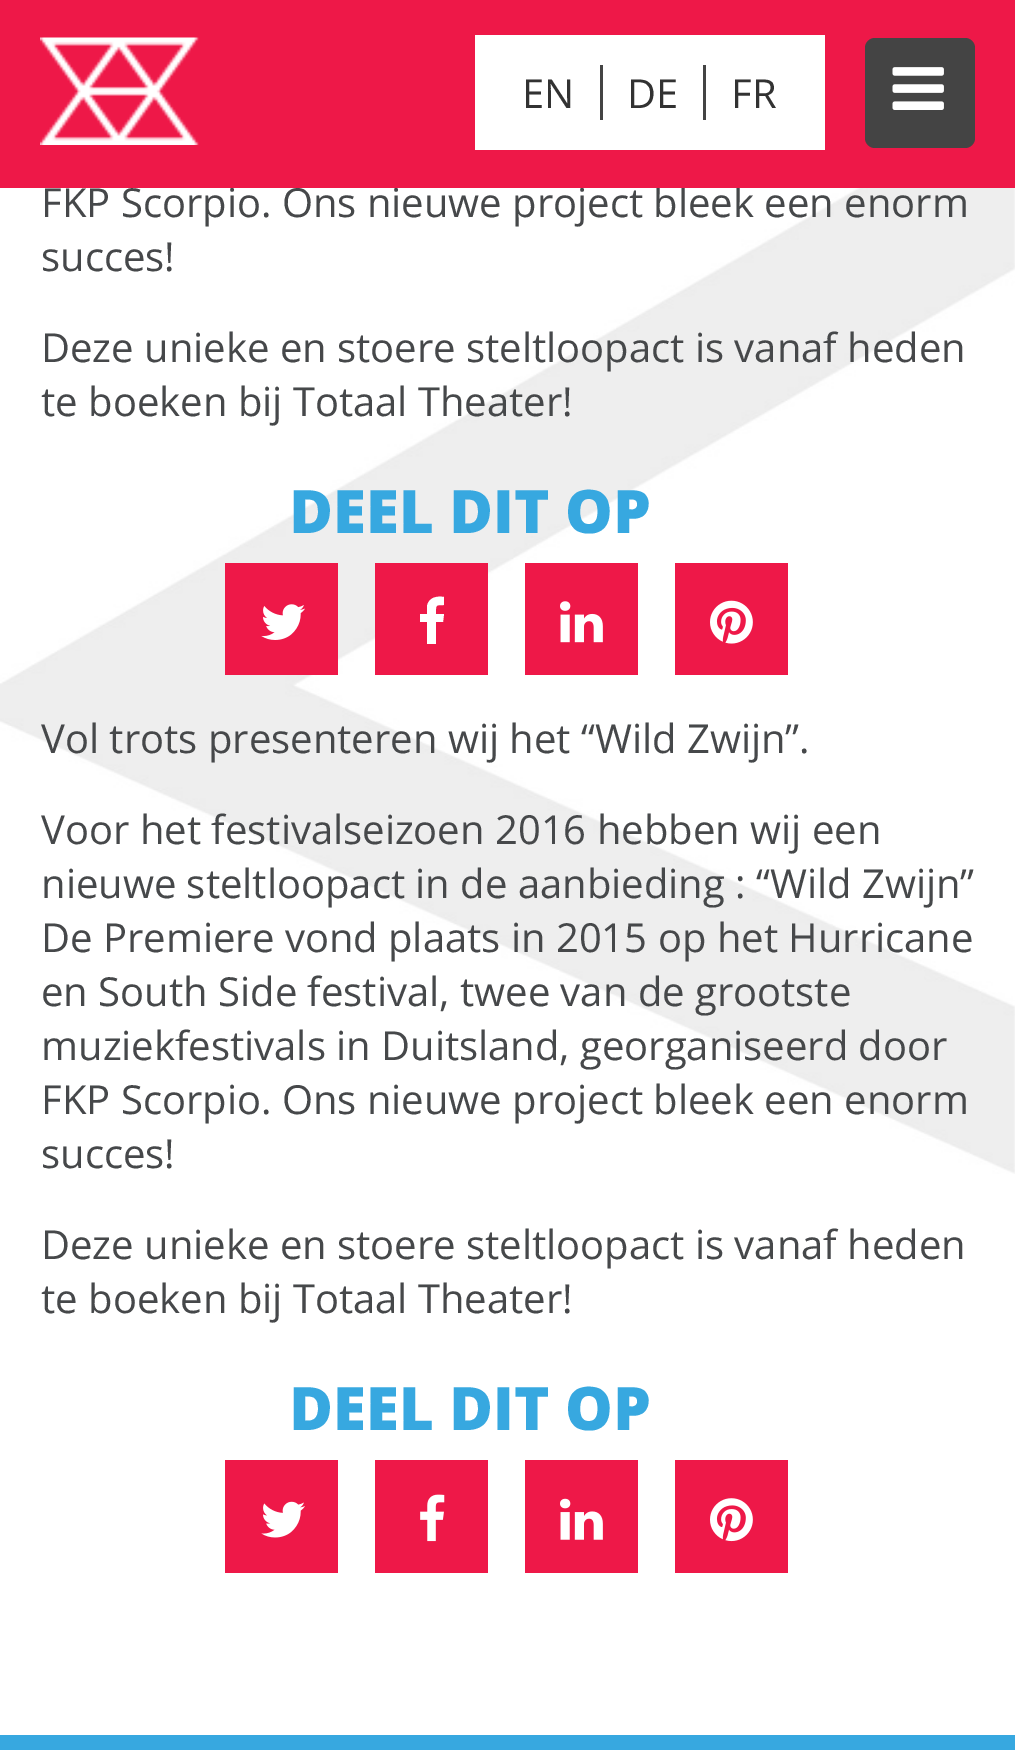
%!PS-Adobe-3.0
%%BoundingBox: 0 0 1015 1750
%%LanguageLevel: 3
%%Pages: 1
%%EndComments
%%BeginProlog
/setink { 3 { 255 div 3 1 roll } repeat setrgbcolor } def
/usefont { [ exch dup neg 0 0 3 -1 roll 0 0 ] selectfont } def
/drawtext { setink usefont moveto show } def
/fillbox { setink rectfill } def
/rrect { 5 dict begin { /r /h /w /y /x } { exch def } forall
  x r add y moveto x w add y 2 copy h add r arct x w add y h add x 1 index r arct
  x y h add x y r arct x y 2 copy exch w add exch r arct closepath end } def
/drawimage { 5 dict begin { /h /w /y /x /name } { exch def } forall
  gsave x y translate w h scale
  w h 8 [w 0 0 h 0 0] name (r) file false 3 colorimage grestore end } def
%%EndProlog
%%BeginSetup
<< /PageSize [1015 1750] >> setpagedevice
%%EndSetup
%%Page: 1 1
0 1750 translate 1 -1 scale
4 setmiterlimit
0 0 1015 1750 255 255 255 fillbox
(assets/img1.rgb) 0 188 1015 986 drawimage
(FKP Scorpio. Ons nieuwe project bleek een enorm) 41 217 /OpenSans-Regular 40 70 72 74 drawtext
0 0 1015 188 238 24 72 fillbox
(assets/img2.rgb) 40 37 159 108 drawimage
475 35 350 115 255 255 255 fillbox
(EN) 522 108 /OpenSans-Regular 40 50 50 50 drawtext
600 65 3 55 68 68 68 fillbox
(DE) 627 108 /OpenSans-Regular 40 50 50 50 drawtext
703 65 3 55 68 68 68 fillbox
(FR) 731 108 /OpenSans-Regular 40 50 50 50 drawtext
68 68 68 setink
865 38 110 110 10 rrect fill
(assets/img3.rgb) 892 67 52 43 drawimage
(succes!) 41 271 /OpenSans-Regular 40 70 72 74 drawtext
(Deze unieke en stoere steltloopact is vanaf heden) 41 362 /OpenSans-Regular 40 70 72 74 drawtext
(te boeken bij Totaal Theater!) 41 416 /OpenSans-Regular 40 70 72 74 drawtext
(DEEL DIT OP) 289 533 /OpenSans-ExtraBold 60 55 168 224 drawtext
225 563 113 112 238 24 72 fillbox
(assets/img4.rgb) 261 604 44 36 drawimage
375 563 113 112 238 24 72 fillbox
255 255 255 setink
444 597 moveto 444 605 lineto 435 605 436 605 436 614 curveto 444 614 lineto 443 622 lineto 436 622 lineto 436 644 lineto 427 644 lineto 427 622 lineto 420 622 lineto 420 614 lineto 427 614 lineto 427 606 lineto 429 597 437 596 444 597 curveto closepath fill
525 563 113 112 238 24 72 fillbox
(assets/img5.rgb) 560 601 43 42 drawimage
675 563 113 112 238 24 72 fillbox
(assets/img6.rgb) 710 600 43 44 drawimage
(Vol trots presenteren wij het “Wild Zwijn”.) 41 753 /OpenSans-Regular 40 70 72 74 drawtext
(Voor het festivalseizoen 2016 hebben wij een) 41 844 /OpenSans-Regular 40 70 72 74 drawtext
(nieuwe steltloopact in de aanbieding : “Wild Zwijn”) 41 898 /OpenSans-Regular 40 70 72 74 drawtext
(De Premiere vond plaats in 2015 op het Hurricane) 41 952 /OpenSans-Regular 40 70 72 74 drawtext
(en South Side festival, twee van de grootste) 41 1006 /OpenSans-Regular 40 70 72 74 drawtext
(muziekfestivals in Duitsland, georganiseerd door) 41 1060 /OpenSans-Regular 40 70 72 74 drawtext
(FKP Scorpio. Ons nieuwe project bleek een enorm) 41 1114 /OpenSans-Regular 40 70 72 74 drawtext
(succes!) 41 1168 /OpenSans-Regular 40 70 72 74 drawtext
(Deze unieke en stoere steltloopact is vanaf heden) 41 1259 /OpenSans-Regular 40 70 72 74 drawtext
(te boeken bij Totaal Theater!) 41 1313 /OpenSans-Regular 40 70 72 74 drawtext
(DEEL DIT OP) 289 1430 /OpenSans-ExtraBold 60 55 168 224 drawtext
225 1460 113 113 238 24 72 fillbox
(assets/img7.rgb) 261 1501 44 37 drawimage
375 1460 113 113 238 24 72 fillbox
(assets/img8.rgb) 420 1494 25 48 drawimage
525 1460 113 113 238 24 72 fillbox
(assets/img9.rgb) 560 1498 43 42 drawimage
675 1460 113 113 238 24 72 fillbox
(assets/img10.rgb) 710 1498 43 44 drawimage
0 1735 1015 15 55 168 224 fillbox
showpage
%%EOF
